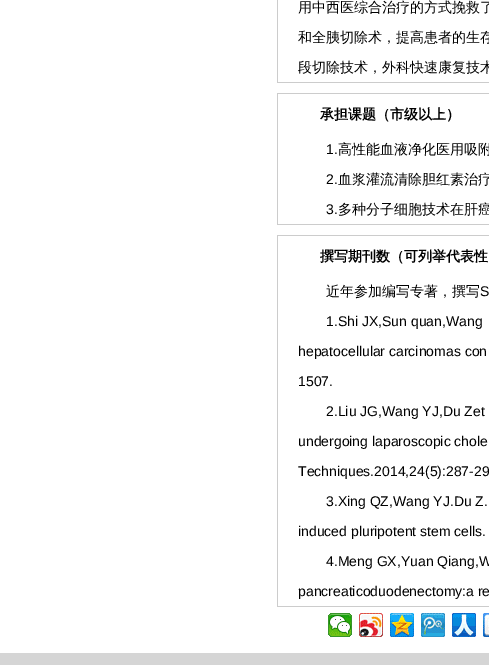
%!PS-Adobe-3.0
%%BoundingBox: 0 0 489 665
%%LanguageLevel: 3
%%Pages: 1
%%EndComments
%%BeginProlog
/setink { 3 { 255 div 3 1 roll } repeat setrgbcolor } def
/usefont { [ exch dup neg 0 0 3 -1 roll 0 0 ] selectfont } def
/drawtext { setink usefont moveto show } def
/fillbox { setink rectfill } def
/drawimage { 5 dict begin { /h /w /y /x /name } { exch def } forall
  gsave x y translate w h scale
  w h 8 [w 0 0 h 0 0] name (r) file false 3 colorimage grestore end } def
%%EndProlog
%%BeginSetup
<< /PageSize [489 665] >> setpagedevice
%%EndSetup
%%Page: 1 1
0 665 translate 1 -1 scale
4 setmiterlimit
0 0 489 665 255 255 255 fillbox
277 0 212 83 204 204 204 fillbox
278 0 211 82 255 255 255 fillbox
(用中西医综合治疗的方式挽救了) 298 12 /WenQuanYiZenHei-Medium 14 0 0 0 drawtext
(和全胰切除术，提高患者的生存) 298 42 /WenQuanYiZenHei-Medium 14 0 0 0 drawtext
(段切除技术，外科快速康复技术) 298 72 /WenQuanYiZenHei-Medium 14 0 0 0 drawtext
277 93 212 132 204 204 204 fillbox
278 94 211 130 255 255 255 fillbox
(承担课题（市级以上）) 320 119 /WenQuanYiZenHei-Bold 14 0 0 0 drawtext
(1.) 326 154 /LiberationSans-Regular 14 0 0 0 drawtext
(高性能血液净化医用吸附) 338 154 /WenQuanYiZenHei-Medium 14 0 0 0 drawtext
(2.) 326 184 /LiberationSans-Regular 14 0 0 0 drawtext
(血浆灌流清除胆红素治疗) 338 184 /WenQuanYiZenHei-Medium 14 0 0 0 drawtext
(3.) 326 214 /LiberationSans-Regular 14 0 0 0 drawtext
(多种分子细胞技术在肝癌) 338 214 /WenQuanYiZenHei-Medium 14 0 0 0 drawtext
277 235 212 372 204 204 204 fillbox
278 236 211 370 255 255 255 fillbox
(撰写期刊数（可列举代表性) 320 261 /WenQuanYiZenHei-Bold 14 0 0 0 drawtext
(近年参加编写专著，撰写) 326 296 /WenQuanYiZenHei-Medium 14 0 0 0 drawtext
(S) 480 296 /LiberationSans-Regular 14 0 0 0 drawtext
(1.Shi JX,Sun quan,Wang) 326 326 /LiberationSans-Regular 14 0 0 0 drawtext
(hepatocellular carcinomas con) 298 356 /LiberationSans-Regular 14 0 0 0 drawtext
(1507.) 298 386 /LiberationSans-Regular 14 0 0 0 drawtext
(2.Liu JG,Wang YJ,Du Zet) 326 416 /LiberationSans-Regular 14 0 0 0 drawtext
(undergoing laparoscopic chole) 298 446 /LiberationSans-Regular 14 0 0 0 drawtext
(Techniques.2014,24\(5\):287-29) 298 476 /LiberationSans-Regular 14 0 0 0 drawtext
(3.Xing QZ,Wang YJ.Du Z.) 326 506 /LiberationSans-Regular 14 0 0 0 drawtext
(induced pluripotent stem cells.) 298 536 /LiberationSans-Regular 14 0 0 0 drawtext
(4.Meng GX,Yuan Qiang,W) 326 566 /LiberationSans-Regular 14 0 0 0 drawtext
(pancreaticoduodenectomy:a re) 298 596 /LiberationSans-Regular 14 0 0 0 drawtext
(assets/img1.rgb) 328 613 24 24 drawimage
(assets/img2.rgb) 359 613 24 24 drawimage
(assets/img3.rgb) 390 613 24 24 drawimage
(assets/img4.rgb) 421 613 24 24 drawimage
(assets/img5.rgb) 452 613 24 24 drawimage
(assets/img6.rgb) 483 613 6 24 drawimage
0 653 489 12 213 213 213 fillbox
showpage
%%EOF
